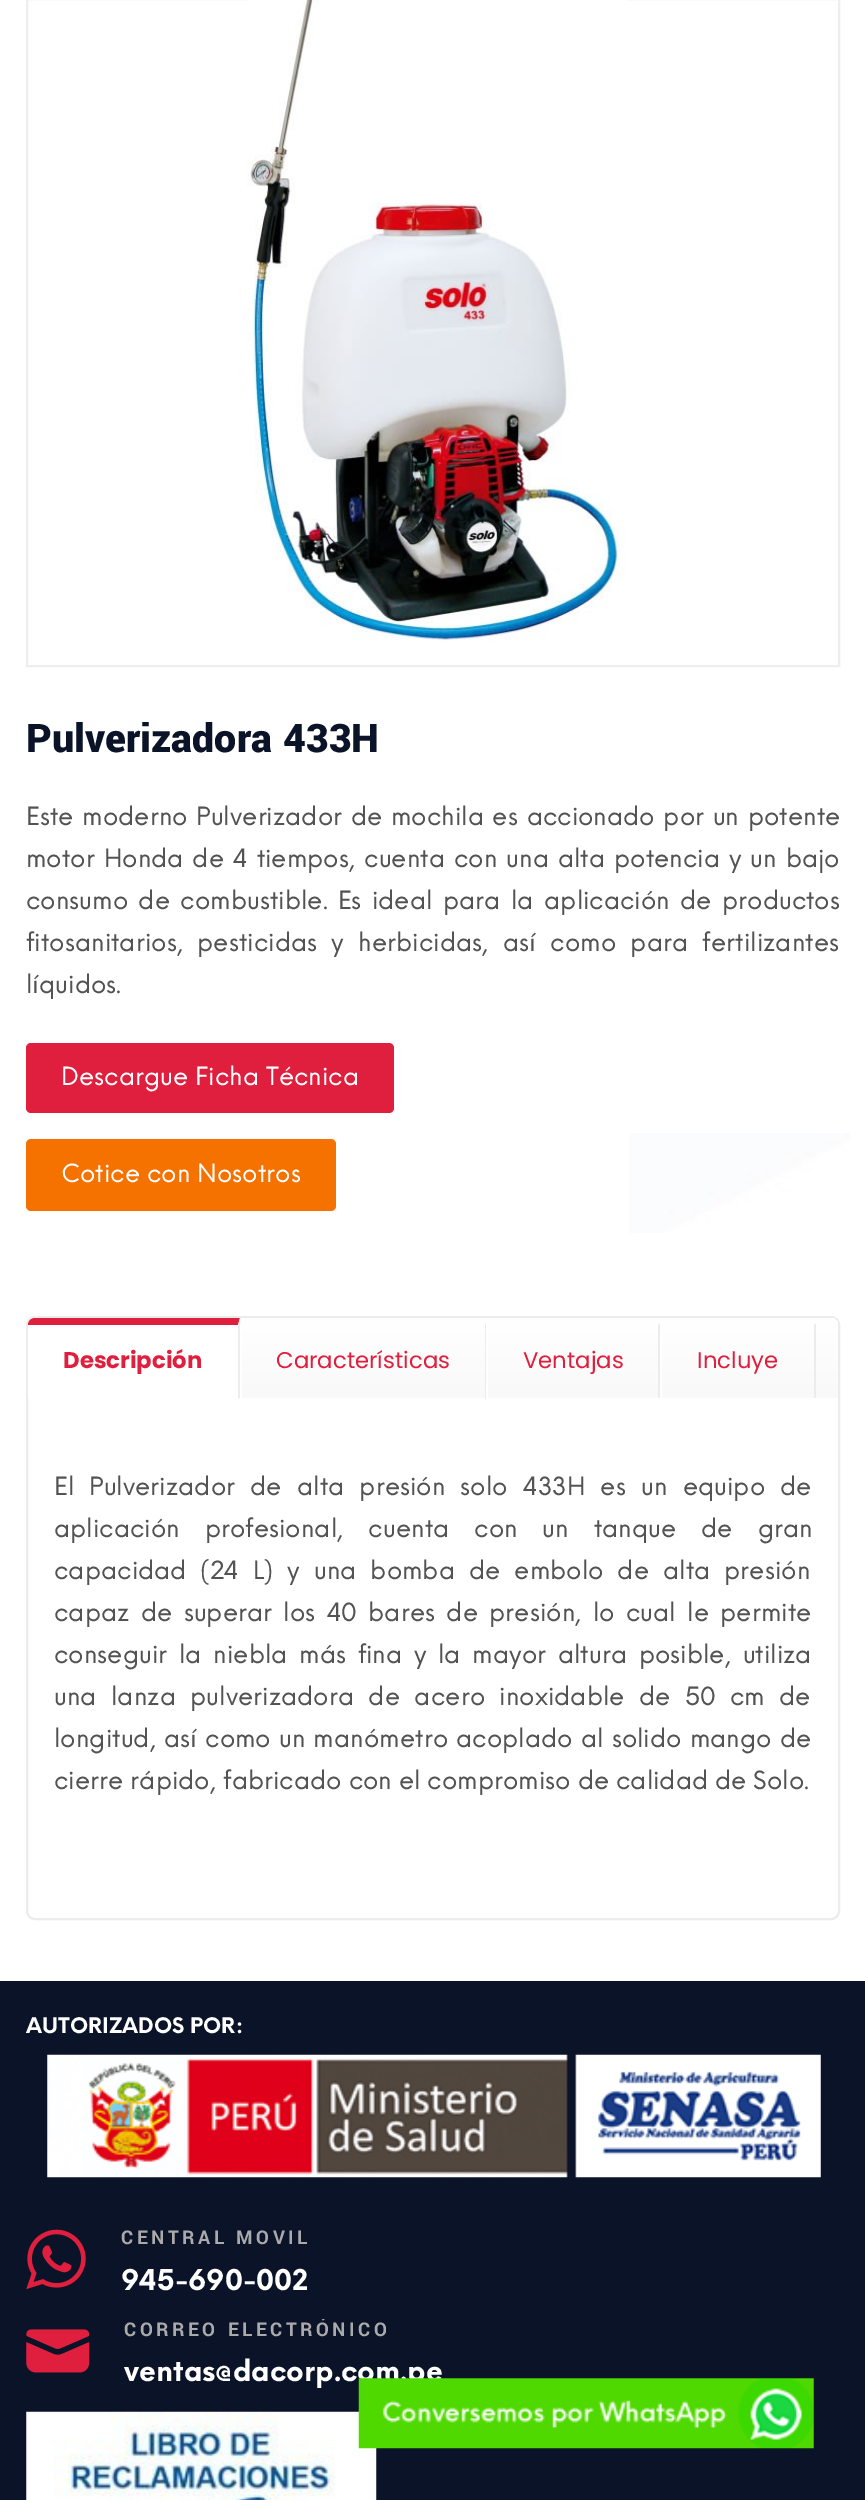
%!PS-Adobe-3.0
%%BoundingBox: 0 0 865 2500
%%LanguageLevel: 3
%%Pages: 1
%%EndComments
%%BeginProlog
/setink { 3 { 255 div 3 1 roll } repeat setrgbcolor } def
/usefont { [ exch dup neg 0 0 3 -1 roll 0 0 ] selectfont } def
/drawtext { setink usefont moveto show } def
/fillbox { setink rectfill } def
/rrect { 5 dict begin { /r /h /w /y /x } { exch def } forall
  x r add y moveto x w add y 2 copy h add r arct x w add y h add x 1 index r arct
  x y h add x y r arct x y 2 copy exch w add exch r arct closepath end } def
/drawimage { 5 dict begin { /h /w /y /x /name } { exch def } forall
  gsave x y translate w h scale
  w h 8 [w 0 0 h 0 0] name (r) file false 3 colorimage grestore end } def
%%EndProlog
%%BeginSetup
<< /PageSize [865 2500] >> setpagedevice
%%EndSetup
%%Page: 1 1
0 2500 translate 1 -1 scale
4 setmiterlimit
0 0 865 2500 255 255 255 fillbox
238 238 238 setink
2 setlinewidth
27 -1 812 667 rectstroke
(assets/img1.rgb) 247 0 380 641 drawimage
(Pulverizadora 433H) 26 752 /Yantramanav-Black 43.75 10 19 40 drawtext
/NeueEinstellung-Regular 24.5 usefont
83 83 83 setink
26 825 moveto 1.75 0 32 (Este moderno Pulverizador de mochila es accionado por un potente) widthshow
26 867 moveto 2 0 32 (motor Honda de 4 tiempos, cuenta con una alta potencia y un bajo) widthshow
26 909 moveto 3.5 0 32 (consumo de combustible. Es ideal para la aplicación de productos) widthshow
26 951 moveto 7.5 0 32 (fitosanitarios, pesticidas y herbicidas, así como para fertilizantes) widthshow
(líquidos.) 26 993 /NeueEinstellung-Regular 24.5 83 83 83 drawtext
223 31 61 setink
26 1043 368 70 5 rrect fill
(Descargue Ficha Técnica) 61 1085 /NeueEinstellung-Regular 24.5 255 255 255 drawtext
245 114 0 setink
26 1139 310 72 5 rrect fill
(Cotice con Nosotros) 61 1182 /NeueEinstellung-Regular 24.5 255 255 255 drawtext
236 236 236 setink
27 1317 812 602 8 rrect stroke
gsave 35 1318 moveto 831 1318 lineto 835 1318 838 1321 838 1325 curveto 838 1398 lineto 28 1398 lineto 28 1325 lineto 28 1321 31 1318 35 1318 curveto closepath clip newpath
<< /ShadingType 2 /ColorSpace /DeviceRGB /Coords [433 1318 433 1398] /Extend [true true] /Function << /FunctionType 2 /Domain [0 1] /C0 [1 1 1] /C1 [0.976 0.976 0.976] /N 1 >> >> shfill grestore
255 255 255 setink
35 1318 moveto 240 1318 lineto 240 1398 lineto 28 1398 lineto 28 1325 lineto 28 1321 31 1318 35 1318 curveto closepath fill
223 31 61 setink
35 1318 moveto 31 1318 28 1321 28 1325 curveto 238 1325 lineto 240 1318 lineto closepath fill
gsave
28 1318 810 80 rectclip
236 236 236 setink
240 1318 moveto 240 1400 lineto 238 1398 lineto 238 1325 lineto closepath fill
grestore
(Descripción) 63 1368 /Poppins-Bold 22.75 223 31 61 drawtext
236 236 236 setink
486 1323 moveto 486 1400 lineto 485 1398 lineto 485 1325 lineto closepath fill
gsave
28 1318 810 80 rectclip
255 255 255 setink
240 1400 moveto 240 1323 lineto 242 1325 lineto 242 1398 lineto closepath fill
grestore
(Características) 276 1368 /Poppins-Regular 22.75 223 31 61 drawtext
gsave
28 1318 810 80 rectclip
236 236 236 setink
660 1323 moveto 660 1400 lineto 658 1398 lineto 658 1325 lineto closepath fill
255 255 255 setink
486 1400 moveto 486 1323 lineto 488 1325 lineto 488 1398 lineto closepath fill
grestore
(Ventajas) 523 1368 /Poppins-Regular 22.75 223 31 61 drawtext
gsave
28 1318 810 80 rectclip
236 236 236 setink
816 1323 moveto 816 1400 lineto 814 1398 lineto 814 1325 lineto closepath fill
255 255 255 setink
660 1400 moveto 660 1323 lineto 662 1325 lineto 662 1398 lineto closepath fill
grestore
(Incluye) 697 1368 /Poppins-Regular 22.75 223 31 61 drawtext
/NeueEinstellung-Regular 24.5 usefont
83 83 83 setink
54 1495 moveto 8.25 0 32 (El Pulverizador de alta presión solo 433H es un equipo de) widthshow
54 1537 moveto 18 0 32 (aplicación profesional, cuenta con un tanque de gran) widthshow
54 1579 moveto 7 0 32 (capacidad \(24 L\) y una bomba de embolo de alta presión) widthshow
54 1621 moveto 4.4 0 32 (capaz de superar los 40 bares de presión, lo cual le permite) widthshow
54 1663 moveto 4.75 0 32 (conseguir la niebla más fina y la mayor altura posible, utiliza) widthshow
54 1705 moveto 7.5 0 32 (una lanza pulverizadora de acero inoxidable de 50 cm de) widthshow
54 1747 moveto 1.25 0 32 (longitud, así como un manómetro acoplado al solido mango de) widthshow
(cierre rápido, fabricado con el compromiso de calidad de Solo.) 54 1789 /NeueEinstellung-Regular 24.5 83 83 83 drawtext
(assets/img2.rgb) 629 1133 221 100 drawimage
0 1981 865 519 10 19 40 fillbox
(AUTORIZADOS POR:) 26 2033 /NeueEinstellung-Bold 21 255 255 255 drawtext
(assets/img3.rgb) 47 2054 774 124 drawimage
(assets/img4.rgb) 26 2229 60 61 drawimage
gsave
121 2230 719 84 rectclip
/Yantramanav-Bold 21 usefont
170 170 170 setink
121 2244 moveto 3.5 0 (CENTRAL MÓVIL) ashow
grestore
(945-690-002) 121 2290 /NeueEinstellung-Bold 28 255 255 255 drawtext
(assets/img5.rgb) 26 2329 64 44 drawimage
gsave
124 2319 716 84 rectclip
/Yantramanav-Bold 21 usefont
170 170 170 setink
124 2336 moveto 3.5 0 (CORREO ELECTRÓNICO) ashow
grestore
(ventas@dacorp.com.pe) 124 2381 /NeueEinstellung-Bold 28 255 255 255 drawtext
(assets/img6.rgb) 26 2411 351 89 drawimage
(assets/img7.rgb) 358 2378 456 71 drawimage
showpage
%%EOF
